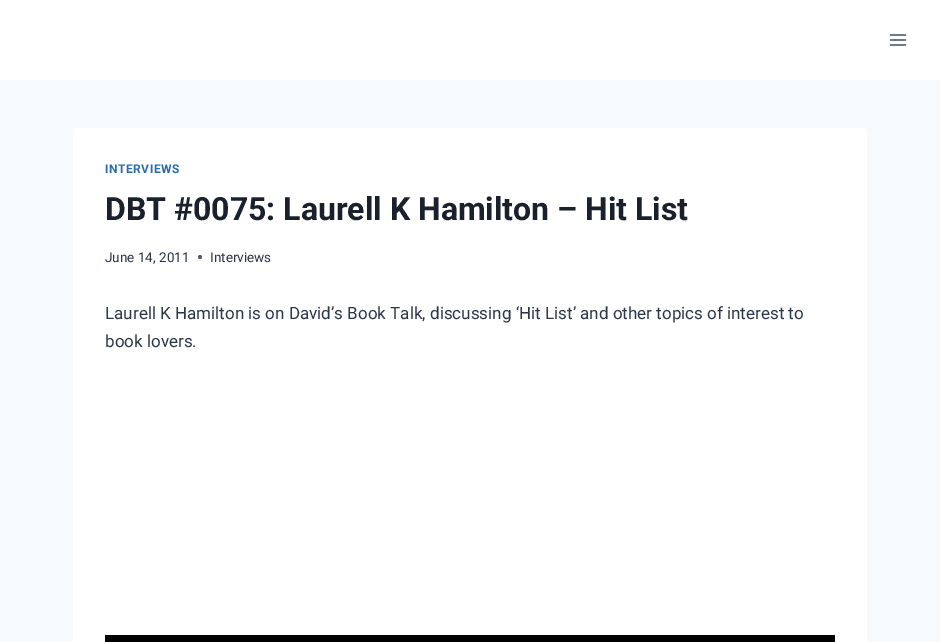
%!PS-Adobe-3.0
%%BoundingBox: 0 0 940 642
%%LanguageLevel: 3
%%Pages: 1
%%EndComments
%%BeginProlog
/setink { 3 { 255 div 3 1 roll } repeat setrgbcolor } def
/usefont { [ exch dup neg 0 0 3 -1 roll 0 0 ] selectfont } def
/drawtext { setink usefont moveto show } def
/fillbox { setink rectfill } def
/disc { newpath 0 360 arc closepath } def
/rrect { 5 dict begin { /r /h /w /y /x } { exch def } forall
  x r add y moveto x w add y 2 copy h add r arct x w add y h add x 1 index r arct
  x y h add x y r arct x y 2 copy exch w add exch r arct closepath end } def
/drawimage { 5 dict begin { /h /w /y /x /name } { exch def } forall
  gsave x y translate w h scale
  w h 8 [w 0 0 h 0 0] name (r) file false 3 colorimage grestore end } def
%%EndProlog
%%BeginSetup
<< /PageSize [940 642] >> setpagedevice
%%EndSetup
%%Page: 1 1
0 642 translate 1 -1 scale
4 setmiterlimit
0 0 940 642 247 250 252 fillbox
0 0 940 80 255 255 255 fillbox
(assets/img1.rgb) 889 34 18 12 drawimage
73 128 794 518 4 rrect fill
/Roboto-Bold 12 usefont
43 108 176 setink
105 173 moveto 0.5 0 (INTERVIEWS) ashow
(DBT #0075: Laurell K Hamilton – Hit List) 105 220 /Roboto-Bold 32 26 32 44 drawtext
(June 14, 2011) 105 262 /Roboto-Regular 13.5 45 55 72 drawtext
87 95 109 setink
200 257 2 disc fill
(Interviews) 210 262 /Roboto-Regular 13.5 45 55 72 drawtext
(Laurell K Hamilton is on David’s Book Talk, discussing ‘Hit List’ and other topics of interest to) 105 319 /Roboto-Regular 17 45 55 72 drawtext
(book lovers.) 105 347 /Roboto-Regular 17 45 55 72 drawtext
105 635 730 7 0 0 0 fillbox
showpage
%%EOF
